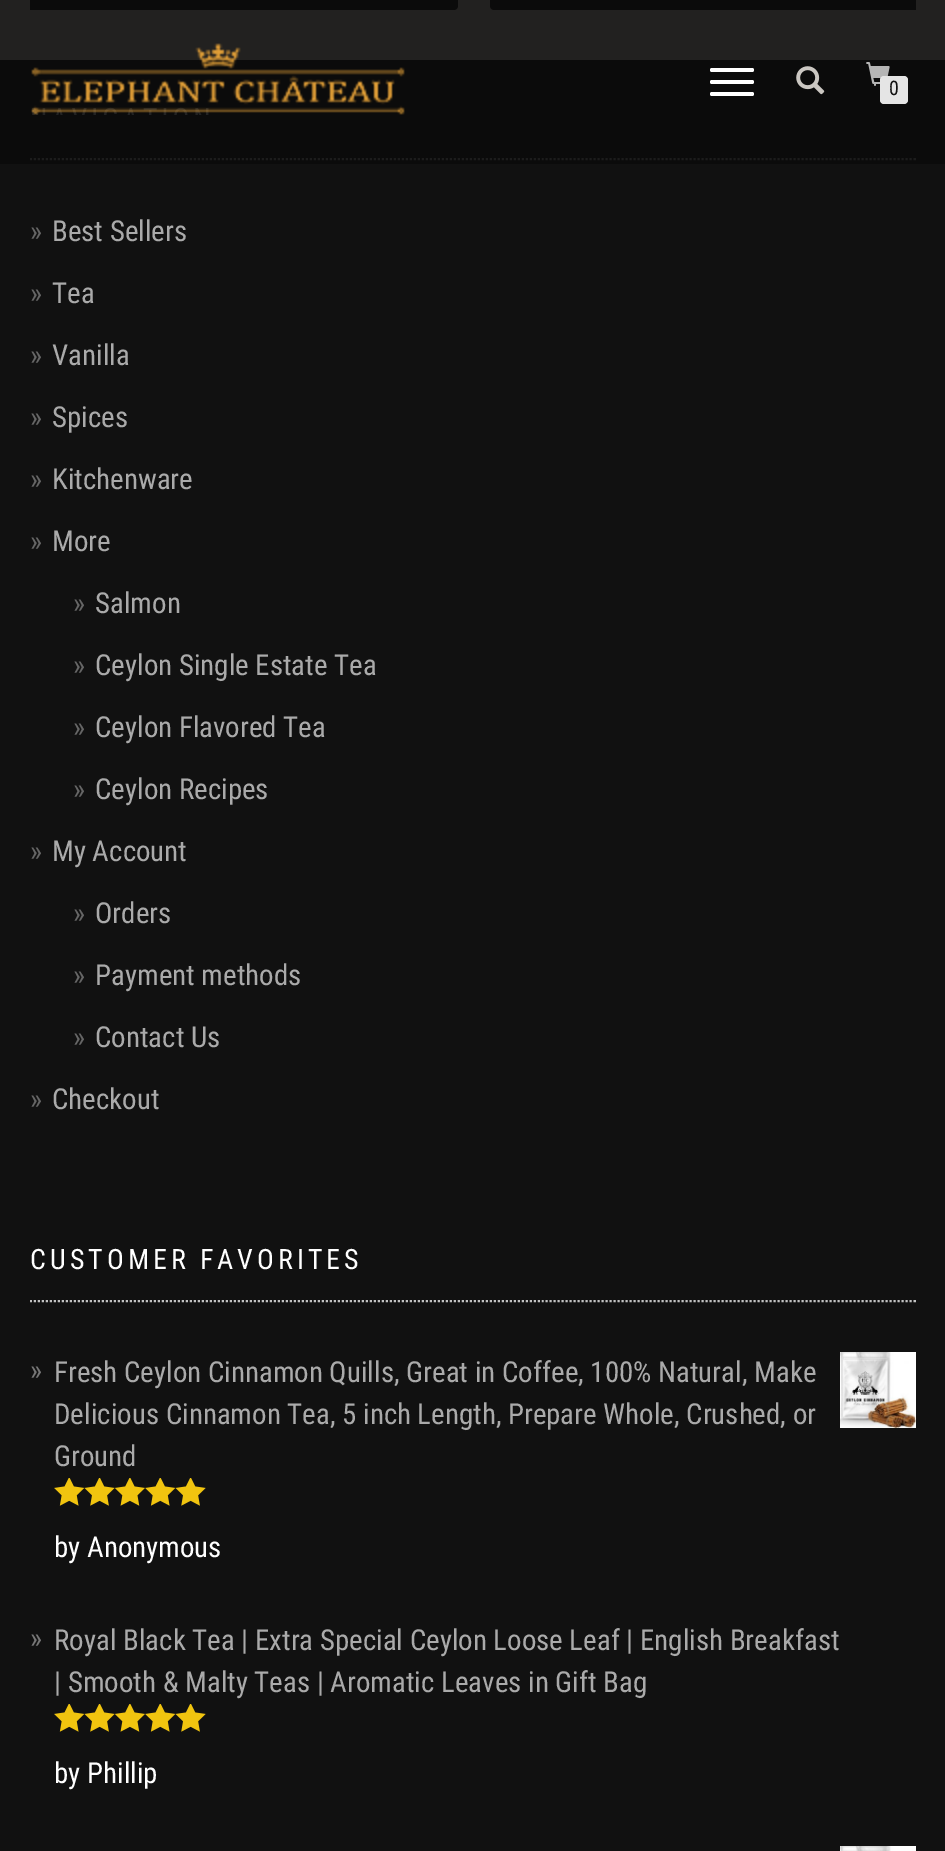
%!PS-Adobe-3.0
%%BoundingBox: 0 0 945 1851
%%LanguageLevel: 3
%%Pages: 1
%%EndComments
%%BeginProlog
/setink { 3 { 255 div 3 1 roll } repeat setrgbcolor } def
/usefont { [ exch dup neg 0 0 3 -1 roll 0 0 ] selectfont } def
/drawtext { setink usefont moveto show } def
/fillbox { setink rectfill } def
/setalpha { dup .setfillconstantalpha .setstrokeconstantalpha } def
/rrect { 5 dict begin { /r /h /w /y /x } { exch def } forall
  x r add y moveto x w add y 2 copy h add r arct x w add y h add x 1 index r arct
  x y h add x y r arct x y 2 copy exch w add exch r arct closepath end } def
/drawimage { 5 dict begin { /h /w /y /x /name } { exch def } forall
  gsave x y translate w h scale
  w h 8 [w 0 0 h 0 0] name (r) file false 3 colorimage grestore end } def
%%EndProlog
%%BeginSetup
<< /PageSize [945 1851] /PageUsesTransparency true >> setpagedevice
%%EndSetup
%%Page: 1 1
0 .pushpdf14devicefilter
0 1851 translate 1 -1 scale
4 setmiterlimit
0 0 945 1851 252 240 231 fillbox
17 17 17 setink
30 -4 moveto 454 -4 lineto 456 -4 458 -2 458 0 curveto 458 6 lineto 458 8 456 10 454 10 curveto 30 10 lineto closepath fill
494 -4 moveto 916 -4 lineto 916 10 lineto 494 10 lineto 492 10 490 8 490 6 curveto 490 0 lineto 490 -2 492 -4 494 -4 curveto closepath fill
0 60 945 1791 17 17 17 fillbox
194 194 194 setink
2 setlinewidth
[2 2] 0 setdash
30 159 moveto 916 159 lineto stroke
0.9 setalpha
0 0 945 164 10 10 10 fillbox
1 setalpha
(assets/img1.rgb) 31 43 374 72 drawimage
255 255 255 setink
710 68 44 4 2 rrect fill
710 80 44 4 2 rrect fill
710 92 44 4 2 rrect fill
(assets/img2.rgb) 796 66 29 29 drawimage
(assets/img3.rgb) 866 62 24 24 drawimage
229 229 229 setink
880 76 28 28 4 rrect fill
(0) 889 95 /RobotoCondensed-Regular 20 17 17 17 drawtext
(») 30 241 /RobotoCondensed-Regular 28.9 102 102 102 drawtext
(Best Sellers) 52 241 /RobotoCondensed-Regular 28.9 170 170 170 drawtext
(») 30 303 /RobotoCondensed-Regular 28.9 102 102 102 drawtext
(Tea) 52 303 /RobotoCondensed-Regular 28.9 170 170 170 drawtext
(») 30 365 /RobotoCondensed-Regular 28.9 102 102 102 drawtext
(Vanilla) 52 365 /RobotoCondensed-Regular 28.9 170 170 170 drawtext
(») 30 427 /RobotoCondensed-Regular 28.9 102 102 102 drawtext
(Spices) 52 427 /RobotoCondensed-Regular 28.9 170 170 170 drawtext
(») 30 489 /RobotoCondensed-Regular 28.9 102 102 102 drawtext
(Kitchenware) 52 489 /RobotoCondensed-Regular 28.9 170 170 170 drawtext
(») 30 551 /RobotoCondensed-Regular 28.9 102 102 102 drawtext
(More) 52 551 /RobotoCondensed-Regular 28.9 170 170 170 drawtext
(») 73 613 /RobotoCondensed-Regular 28.9 102 102 102 drawtext
(Salmon) 95 613 /RobotoCondensed-Regular 28.9 170 170 170 drawtext
(») 73 675 /RobotoCondensed-Regular 28.9 102 102 102 drawtext
(Ceylon Single Estate Tea) 95 675 /RobotoCondensed-Regular 28.9 170 170 170 drawtext
(») 73 737 /RobotoCondensed-Regular 28.9 102 102 102 drawtext
(Ceylon Flavored Tea) 95 737 /RobotoCondensed-Regular 28.9 170 170 170 drawtext
(») 73 799 /RobotoCondensed-Regular 28.9 102 102 102 drawtext
(Ceylon Recipes) 95 799 /RobotoCondensed-Regular 28.9 170 170 170 drawtext
(») 30 861 /RobotoCondensed-Regular 28.9 102 102 102 drawtext
(My Account) 52 861 /RobotoCondensed-Regular 28.9 170 170 170 drawtext
(») 73 923 /RobotoCondensed-Regular 28.9 102 102 102 drawtext
(Orders) 95 923 /RobotoCondensed-Regular 28.9 170 170 170 drawtext
(») 73 985 /RobotoCondensed-Regular 28.9 102 102 102 drawtext
(Payment methods) 95 985 /RobotoCondensed-Regular 28.9 170 170 170 drawtext
(») 73 1047 /RobotoCondensed-Regular 28.9 102 102 102 drawtext
(Contact Us) 95 1047 /RobotoCondensed-Regular 28.9 170 170 170 drawtext
(») 30 1109 /RobotoCondensed-Regular 28.9 102 102 102 drawtext
(Checkout) 52 1109 /RobotoCondensed-Regular 28.9 170 170 170 drawtext
194 194 194 setink
30 1301 moveto 916 1301 lineto stroke
/RobotoCondensed-Regular 28 usefont
255 255 255 setink
30 1269 moveto 4 0 (CUSTOMER FAVORITES) ashow
(») 30 1380 /RobotoCondensed-Regular 28.9 119 119 119 drawtext
(Fresh Ceylon Cinnamon Quills, Great in Coffee, 100% Natural, Make) 54 1382 /RobotoCondensed-Regular 28.9 170 170 170 drawtext
(assets/img4.rgb) 840 1352 76 76 drawimage
(Delicious Cinnamon Tea, 5 inch Length, Prepare Whole, Crushed, or) 54 1424 /RobotoCondensed-Regular 28.9 170 170 170 drawtext
(Ground) 54 1466 /RobotoCondensed-Regular 28.9 170 170 170 drawtext
(assets/img5.rgb) 54 1478 152 28 drawimage
(by Anonymous) 54 1557 /RobotoCondensed-Regular 28.9 255 255 255 drawtext
(») 30 1648 /RobotoCondensed-Regular 28.9 119 119 119 drawtext
(Royal Black Tea | Extra Special Ceylon Loose Leaf | English Breakfast) 54 1650 /RobotoCondensed-Regular 28.9 170 170 170 drawtext
(| Smooth & Malty Teas | Aromatic Leaves in Gift Bag) 54 1692 /RobotoCondensed-Regular 28.9 170 170 170 drawtext
(assets/img5.rgb) 54 1704 152 28 drawimage
(by Phillip) 54 1783 /RobotoCondensed-Regular 28.9 255 255 255 drawtext
(assets/img6.rgb) 840 1846 76 5 drawimage
.poppdf14devicefilter showpage
%%EOF
